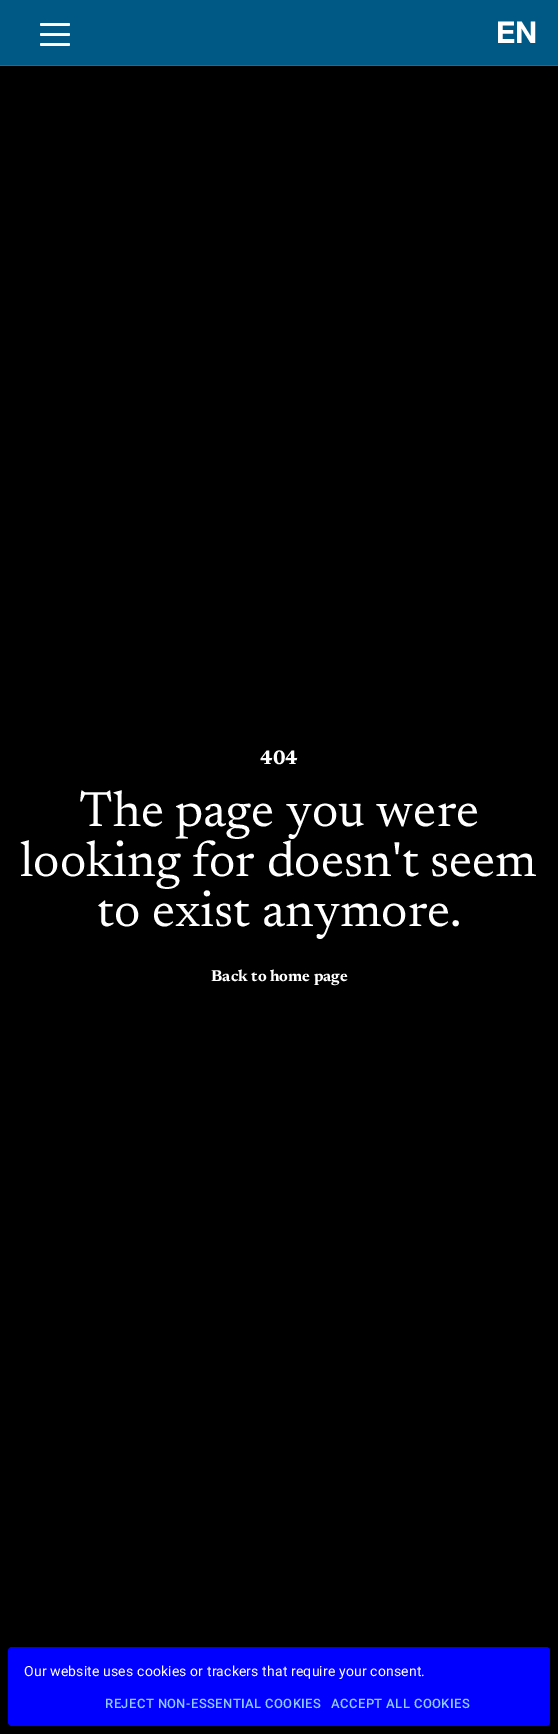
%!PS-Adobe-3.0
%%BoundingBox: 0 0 558 1734
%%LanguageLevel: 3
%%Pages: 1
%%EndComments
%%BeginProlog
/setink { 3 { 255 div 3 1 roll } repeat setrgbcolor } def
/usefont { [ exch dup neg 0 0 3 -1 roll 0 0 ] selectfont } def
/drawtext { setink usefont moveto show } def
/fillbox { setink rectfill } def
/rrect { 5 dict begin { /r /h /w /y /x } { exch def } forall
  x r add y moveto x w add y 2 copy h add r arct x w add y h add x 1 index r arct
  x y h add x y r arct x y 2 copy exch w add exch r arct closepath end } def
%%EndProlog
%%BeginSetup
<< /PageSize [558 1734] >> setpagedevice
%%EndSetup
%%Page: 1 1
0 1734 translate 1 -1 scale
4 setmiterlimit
0 0 558 1734 0 0 0 fillbox
0 0 558 65 0 88 132 fillbox
0 65 558 1 33 107 144 fillbox
255 255 255 setink
40 33 30 3 1.5 rrect fill
40 23 30 3 1.5 rrect fill
40 43 30 3 1.5 rrect fill
(EN) 496 43 /HelveticaNeue-Bold 30 255 255 255 drawtext
(404) 260 764 /Newsreader-Bold 20 255 255 255 drawtext
(The page you were) 79 826 /Newsreader-Regular 50 255 255 255 drawtext
(looking for doesn't seem) 20 876 /Newsreader-Regular 50 255 255 255 drawtext
(to exist anymore.) 97 926 /Newsreader-Regular 50 255 255 255 drawtext
(Back to home page) 211 981 /Newsreader-Bold 16 255 255 255 drawtext
0 0 255 setink
8 1647 542 79 4 rrect fill
/Roboto-Regular 14 usefont
255 255 255 setink
24 1676 moveto 0.15 0 (Our website uses cookies or trackers that require your consent.) ashow
/Roboto-Medium 13 usefont
144 202 249 setink
105 1708 moveto 0.4 0 (REJECT NON-ESSENTIAL COOKIES) ashow
331 1708 moveto 0.4 0 (ACCEPT ALL COOKIES) ashow
showpage
%%EOF
